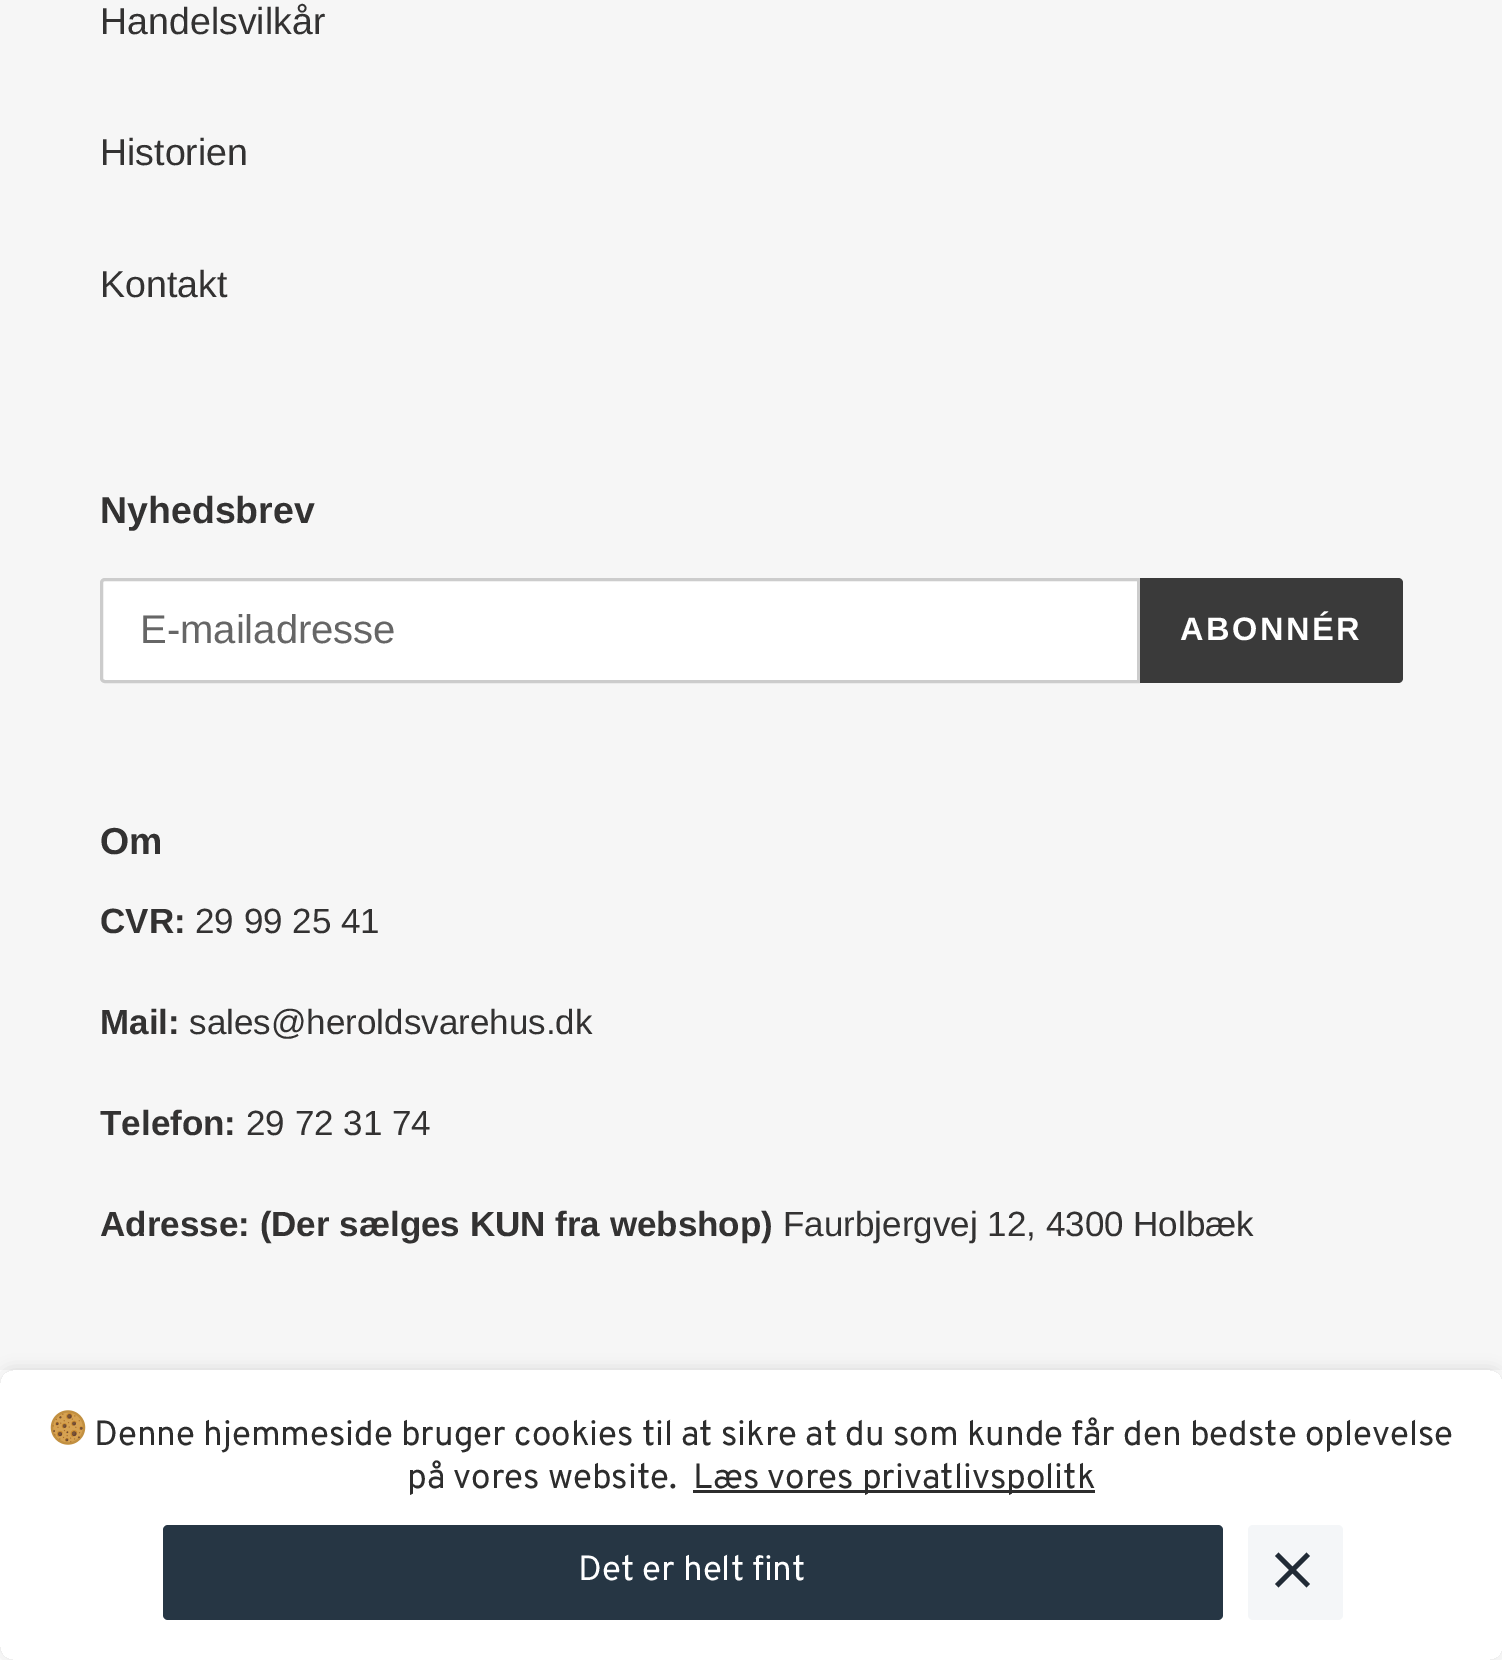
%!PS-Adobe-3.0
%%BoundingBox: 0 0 1502 1660
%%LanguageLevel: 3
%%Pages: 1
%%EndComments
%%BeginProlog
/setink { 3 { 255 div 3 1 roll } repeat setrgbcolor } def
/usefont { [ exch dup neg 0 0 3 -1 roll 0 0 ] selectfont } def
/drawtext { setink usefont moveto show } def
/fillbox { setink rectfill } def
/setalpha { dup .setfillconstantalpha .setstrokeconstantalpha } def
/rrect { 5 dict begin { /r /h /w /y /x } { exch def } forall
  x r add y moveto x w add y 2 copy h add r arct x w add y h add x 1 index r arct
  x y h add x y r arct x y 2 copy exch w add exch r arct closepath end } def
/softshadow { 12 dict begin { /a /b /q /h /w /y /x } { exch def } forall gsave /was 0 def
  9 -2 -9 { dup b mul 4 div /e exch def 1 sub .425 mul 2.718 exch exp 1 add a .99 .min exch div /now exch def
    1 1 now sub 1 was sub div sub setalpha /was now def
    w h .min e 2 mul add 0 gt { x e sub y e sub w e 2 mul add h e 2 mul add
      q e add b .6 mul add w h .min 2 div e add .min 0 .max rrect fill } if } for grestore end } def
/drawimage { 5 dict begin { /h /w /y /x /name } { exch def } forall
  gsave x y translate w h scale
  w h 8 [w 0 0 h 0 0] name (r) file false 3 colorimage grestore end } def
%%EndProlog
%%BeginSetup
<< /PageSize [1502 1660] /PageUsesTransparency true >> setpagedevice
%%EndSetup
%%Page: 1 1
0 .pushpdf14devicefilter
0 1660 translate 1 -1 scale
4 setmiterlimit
0 0 1502 1660 246 246 246 fillbox
(Handelsvilkår) 100 34 /LiberationSans-Regular 37.5 51 50 50 drawtext
(Historien) 100 165 /LiberationSans-Regular 37.5 51 50 50 drawtext
(Kontakt) 100 297 /LiberationSans-Regular 37.5 51 50 50 drawtext
(Nyhedsbrev) 100 523 /LiberationSans-Bold 37.5 51 50 50 drawtext
255 255 255 setink
105 579.5 moveto 1138.5 579.5 lineto 1138.5 681.5 lineto 105 681.5 lineto 103 681.5 101.5 680 101.5 678 curveto 101.5 583 lineto 101.5 581 103 579.5 105 579.5 curveto closepath gsave fill grestore
204 204 204 setink
3 setlinewidth
stroke
(E-mailadresse) 140 643 /LiberationSans-Regular 40 102 102 102 drawtext
58 58 58 setink
1140 578 moveto 1398 578 lineto 1401 578 1403 580 1403 583 curveto 1403 678 lineto 1403 681 1401 683 1398 683 curveto 1140 683 lineto closepath fill
/LiberationSans-Bold 32.5 usefont
255 255 255 setink
1180 640 moveto 2.5 0 (ABONNÉR) ashow
(Om) 100 854 /LiberationSans-Bold 37.5 51 50 50 drawtext
(CVR:) 100 933 /LiberationSans-Bold 35 51 50 50 drawtext
(29 99 25 41) 195 933 /LiberationSans-Regular 35 51 50 50 drawtext
(Mail:) 100 1034 /LiberationSans-Bold 35 51 50 50 drawtext
(sales@heroldsvarehus.dk) 189 1034 /LiberationSans-Regular 35 51 50 50 drawtext
(Telefon:) 100 1135 /LiberationSans-Bold 35 51 50 50 drawtext
(29 72 31 74) 246 1135 /LiberationSans-Regular 35 51 50 50 drawtext
(Adresse: \(Der sælges KUN fra webshop\)) 100 1236 /LiberationSans-Bold 35 51 50 50 drawtext
(Faurbjergvej 12, 4300 Holbæk) 783 1236 /LiberationSans-Regular 35 51 50 50 drawtext
0 1370 1502 290 255 255 255 fillbox
gsave
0 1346 moveto 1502 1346 lineto 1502 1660 lineto 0 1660 lineto closepath 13 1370 moveto 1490 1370 lineto 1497 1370 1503 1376 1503 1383 curveto 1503 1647 lineto 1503 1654 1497 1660 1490 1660 curveto 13 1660 lineto 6 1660 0 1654 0 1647 curveto 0 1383 lineto 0 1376 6 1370 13 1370 curveto closepath eoclip newpath
0 0 0 setink
0 1370 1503 290 13 7.5 0.12 softshadow
grestore
(assets/img1.rgb) 50 1410 36 35 drawimage
(Denne hjemmeside bruger cookies til at sikre at du som kunde får den bedste oplevelse) 94 1445 /Overpass-Regular 35 45 45 45 drawtext
(på vores website.) 407 1488 /Overpass-Regular 35 45 45 45 drawtext
693 1490 402 3 45 45 45 fillbox
(Læs vores privatlivspolitk) 693 1488 /Overpass-Regular 35 45 45 45 drawtext
38 54 68 setink
163 1525 1060 95 5 rrect fill
(Det er helt fint) 578 1580 /Overpass-Regular 35 255 255 255 drawtext
244 246 248 setink
1248 1525 95 95 5 rrect fill
33 43 54 setink
1310 1556 moveto 1306.5 1552.5 lineto 1292.5 1566.5 lineto 1278.5 1552.5 lineto 1275 1556 lineto 1289 1570 lineto 1275 1584 lineto 1278.5 1587.5 lineto 1292.5 1573.5 lineto 1306.5 1587.5 lineto 1310 1584 lineto 1296 1570 lineto closepath fill
.poppdf14devicefilter showpage
%%EOF
